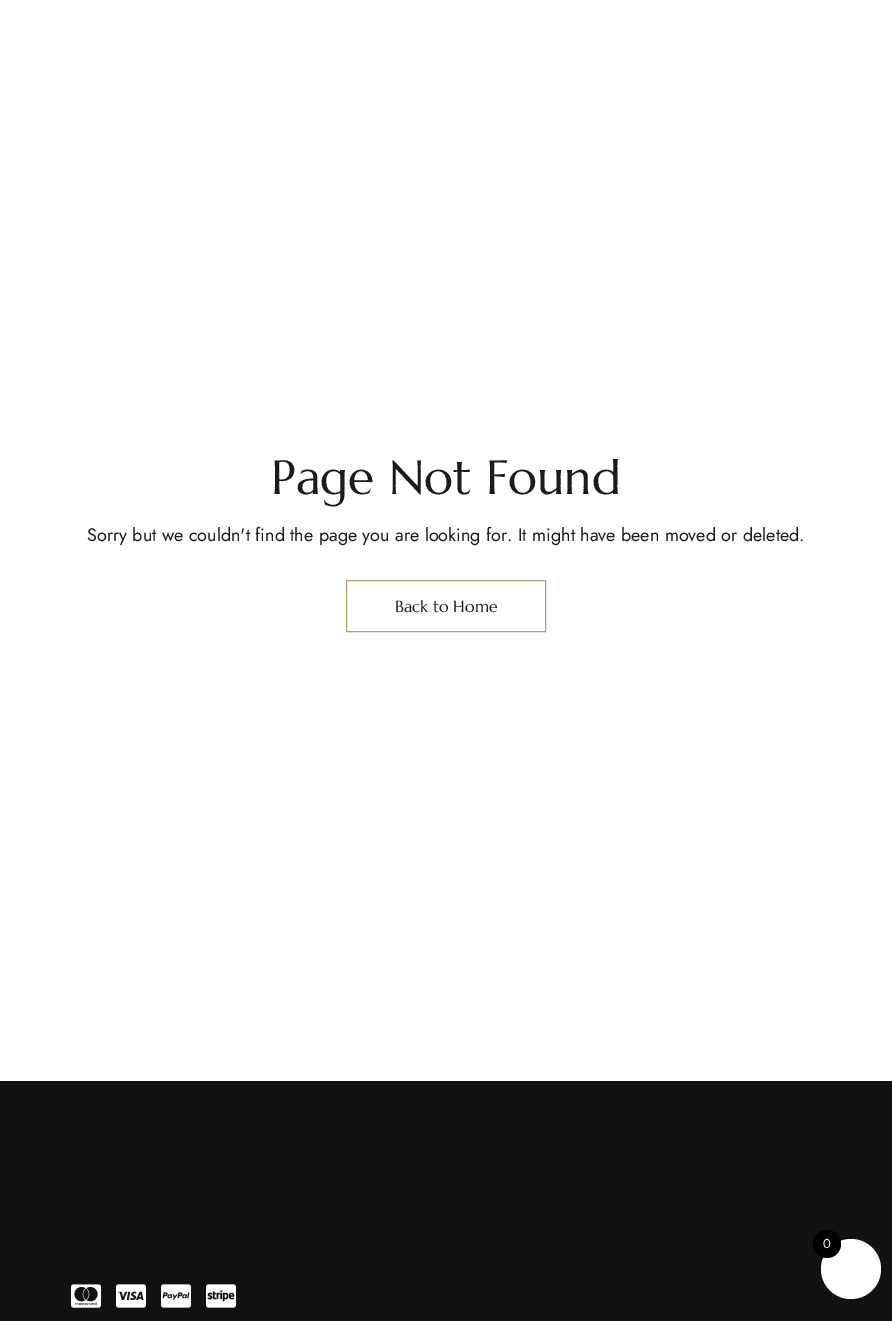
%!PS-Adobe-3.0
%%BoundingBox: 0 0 892 1321
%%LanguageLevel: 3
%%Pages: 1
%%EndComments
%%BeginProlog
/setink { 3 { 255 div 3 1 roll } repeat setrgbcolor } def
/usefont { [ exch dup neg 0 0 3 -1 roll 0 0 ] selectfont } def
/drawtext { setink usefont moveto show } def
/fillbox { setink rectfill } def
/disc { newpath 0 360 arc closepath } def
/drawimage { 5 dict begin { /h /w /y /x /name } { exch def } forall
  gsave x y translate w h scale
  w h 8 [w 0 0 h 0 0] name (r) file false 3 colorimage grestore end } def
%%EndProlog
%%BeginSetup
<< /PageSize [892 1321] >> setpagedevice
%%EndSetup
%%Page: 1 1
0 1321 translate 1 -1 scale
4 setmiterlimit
0 0 892 1321 255 255 255 fillbox
(Page Not Found) 271 494 /Marcellus-Regular 48 26 27 26 drawtext
(Sorry but we couldn't find the page you are looking for. It might have been moved or deleted.) 87 541 /Jost-Regular 18 26 27 26 drawtext
185 157 117 setink
346.5 580.5 199 51 rectstroke
(Back to Home) 395 612 /Marcellus-Regular 16 26 27 26 drawtext
0 1081 892 240 17 17 17 fillbox
(assets/img1.rgb) 71 1284 30 24 drawimage
(assets/img2.rgb) 116 1284 30 24 drawimage
(assets/img3.rgb) 161 1284 30 24 drawimage
(assets/img4.rgb) 206 1284 30 24 drawimage
255 255 255 setink
851 1269 30 disc fill
0 0 0 setink
827 1244 14 disc fill
(0) 823 1248 /Jost-Regular 13 255 255 255 drawtext
showpage
%%EOF
